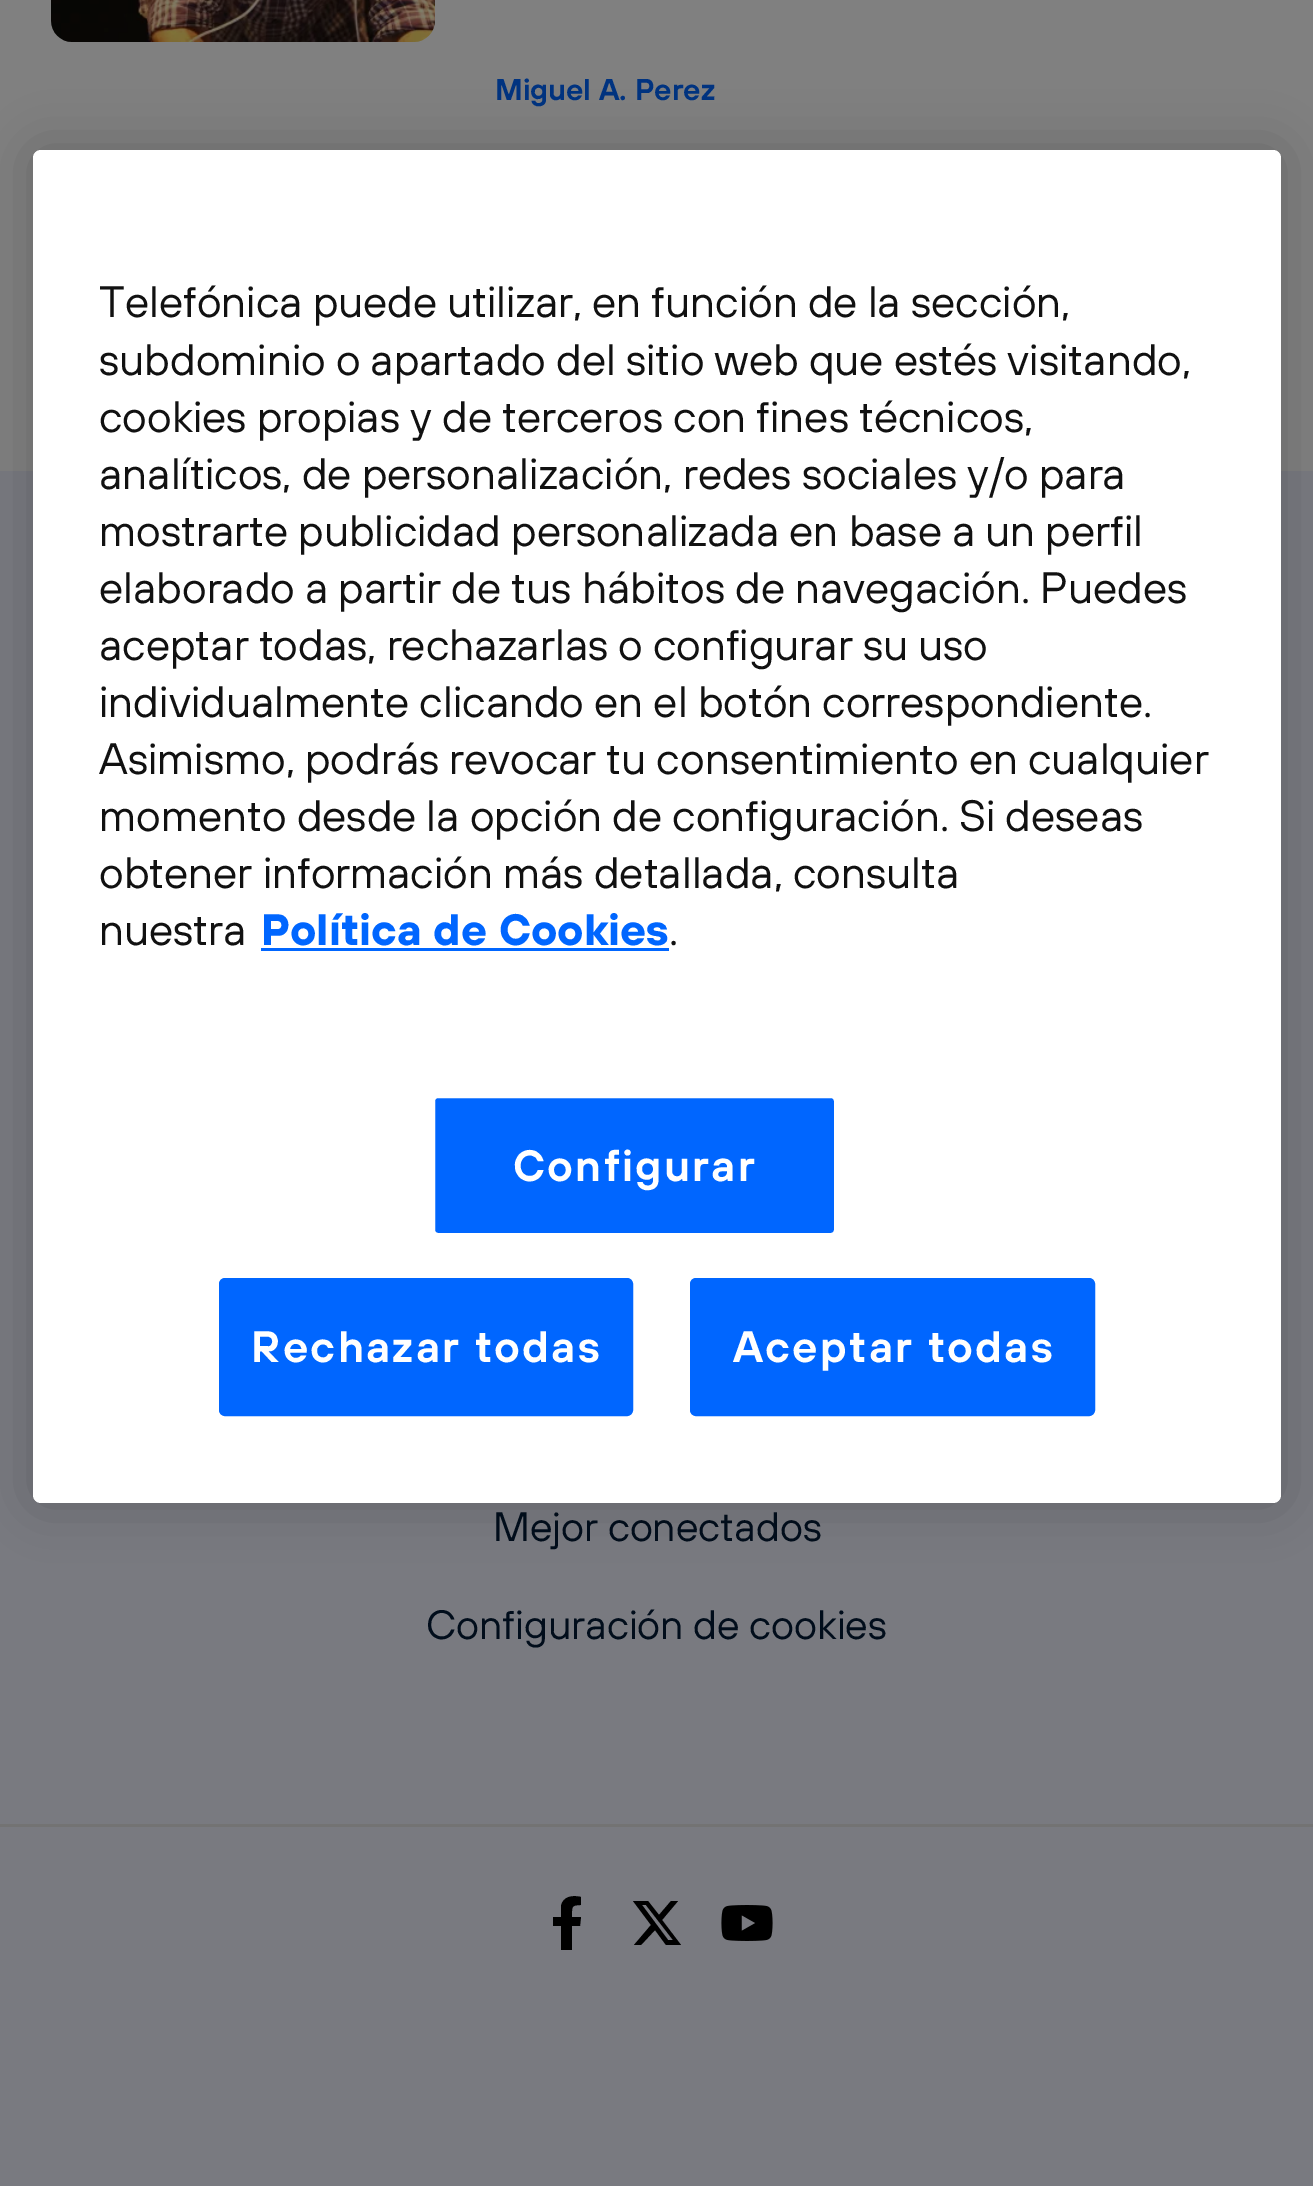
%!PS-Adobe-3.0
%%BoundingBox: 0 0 1313 2186
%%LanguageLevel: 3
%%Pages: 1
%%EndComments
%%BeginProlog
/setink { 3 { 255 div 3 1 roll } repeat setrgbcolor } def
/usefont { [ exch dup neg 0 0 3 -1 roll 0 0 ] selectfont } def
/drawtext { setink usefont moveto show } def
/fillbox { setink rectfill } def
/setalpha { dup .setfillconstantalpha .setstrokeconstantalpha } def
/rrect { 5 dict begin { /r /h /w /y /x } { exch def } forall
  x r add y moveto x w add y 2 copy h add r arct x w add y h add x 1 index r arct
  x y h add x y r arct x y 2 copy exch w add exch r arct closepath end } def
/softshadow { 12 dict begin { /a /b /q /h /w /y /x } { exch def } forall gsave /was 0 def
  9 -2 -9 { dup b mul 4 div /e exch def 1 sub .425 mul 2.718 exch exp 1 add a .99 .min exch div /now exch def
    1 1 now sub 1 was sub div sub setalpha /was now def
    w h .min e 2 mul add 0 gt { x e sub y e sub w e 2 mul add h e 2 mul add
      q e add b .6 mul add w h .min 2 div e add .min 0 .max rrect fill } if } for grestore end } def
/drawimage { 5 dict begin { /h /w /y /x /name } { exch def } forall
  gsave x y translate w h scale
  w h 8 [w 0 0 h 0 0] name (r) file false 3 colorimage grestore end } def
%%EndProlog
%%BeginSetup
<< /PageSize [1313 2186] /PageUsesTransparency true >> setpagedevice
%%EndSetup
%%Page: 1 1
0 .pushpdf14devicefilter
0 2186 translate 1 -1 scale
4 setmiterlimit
0 0 1313 2186 128 128 128 fillbox
(assets/img1.rgb) 51 0 384 42 drawimage
(Miguel A. Perez) 495 100 /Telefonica-SemiBold 30 0 51 128 drawtext
0 471 1313 1353 121 122 128 fillbox
(Mejor conectados) 493 1541 /Telefonica-Regular 41 1 13 27 drawtext
(Configuración de cookies) 426 1639 /Telefonica-Regular 41 1 13 27 drawtext
0 1827 1313 359 121 122 128 fillbox
0 1824 1313 3 115 115 115 fillbox
0 0 0 setink
580 1926 moveto 581 1917 lineto 572 1917 lineto 572 1907 571 1905 581 1905 curveto 581 1897 lineto 573 1895 563 1896 561 1906 curveto 561 1917 lineto 553 1917 lineto 553 1926 lineto 561 1926 lineto 561 1950 lineto 572 1950 lineto 572 1926 lineto closepath fill
671 1901 moveto 678 1901 lineto 662 1920 lineto 681 1945 lineto 666 1945 lineto 655 1930 lineto 641 1945 lineto 634 1945 lineto 651 1925 lineto 633 1901 lineto 648 1901 lineto 659 1915 lineto closepath 668 1940 moveto 673 1940 lineto 646 1905 lineto 642 1905 lineto closepath fill
(assets/img2.rgb) 721 1905 52 36 drawimage
33 150 1248 1353 8 27 0.2 softshadow
255 255 255 setink
33 150 1248 1353 8 rrect fill
(Telefónica puede utilizar, en función de la sección,) 99 317 /Telefonica-Regular 43.9 17 17 17 drawtext
(subdominio o apartado del sitio web que estés visitando,) 99 375 /Telefonica-Regular 43.9 17 17 17 drawtext
(cookies propias y de terceros con fines técnicos,) 99 432 /Telefonica-Regular 43.9 17 17 17 drawtext
(analíticos, de personalización, redes sociales y/o para) 99 489 /Telefonica-Regular 43.9 17 17 17 drawtext
(mostrarte publicidad personalizada en base a un perfil) 99 546 /Telefonica-Regular 43.9 17 17 17 drawtext
(elaborado a partir de tus hábitos de navegación. Puedes) 99 603 /Telefonica-Regular 43.9 17 17 17 drawtext
(aceptar todas, rechazarlas o configurar su uso) 99 660 /Telefonica-Regular 43.9 17 17 17 drawtext
(individualmente clicando en el botón correspondiente.) 99 717 /Telefonica-Regular 43.9 17 17 17 drawtext
(Asimismo, podrás revocar tu consentimiento en cualquier) 99 774 /Telefonica-Regular 43.9 17 17 17 drawtext
(momento desde la opción de configuración. Si deseas) 99 831 /Telefonica-Regular 43.9 17 17 17 drawtext
(obtener información más detallada, consulta) 99 888 /Telefonica-Regular 43.9 17 17 17 drawtext
(nuestra) 99 945 /Telefonica-Regular 43.9 17 17 17 drawtext
(Política de Cookies) 261 945 /Telefonica-Bold 43.9 0 102 255 drawtext
261 948 408 3 0 102 255 fillbox
(.) 669 945 /Telefonica-Regular 43.9 17 17 17 drawtext
0 102 255 setink
433.5 1096.5 402 138 4.5 rrect gsave fill grestore
255 255 255 setink
3 setlinewidth
stroke
/Telefonica-SemiBold 43.9 usefont
513 1181 moveto 2.25 0 (Configurar) ashow
0 102 255 setink
220.5 1279.5 411 135 4.5 rrect gsave fill grestore
stroke
255 255 255 setink
251 1362 moveto 2.25 0 (Rechazar todas) ashow
0 102 255 setink
691.5 1279.5 402 135 4.5 rrect gsave fill grestore
stroke
255 255 255 setink
733 1362 moveto 2.25 0 (Aceptar todas) ashow
.poppdf14devicefilter showpage
%%EOF
